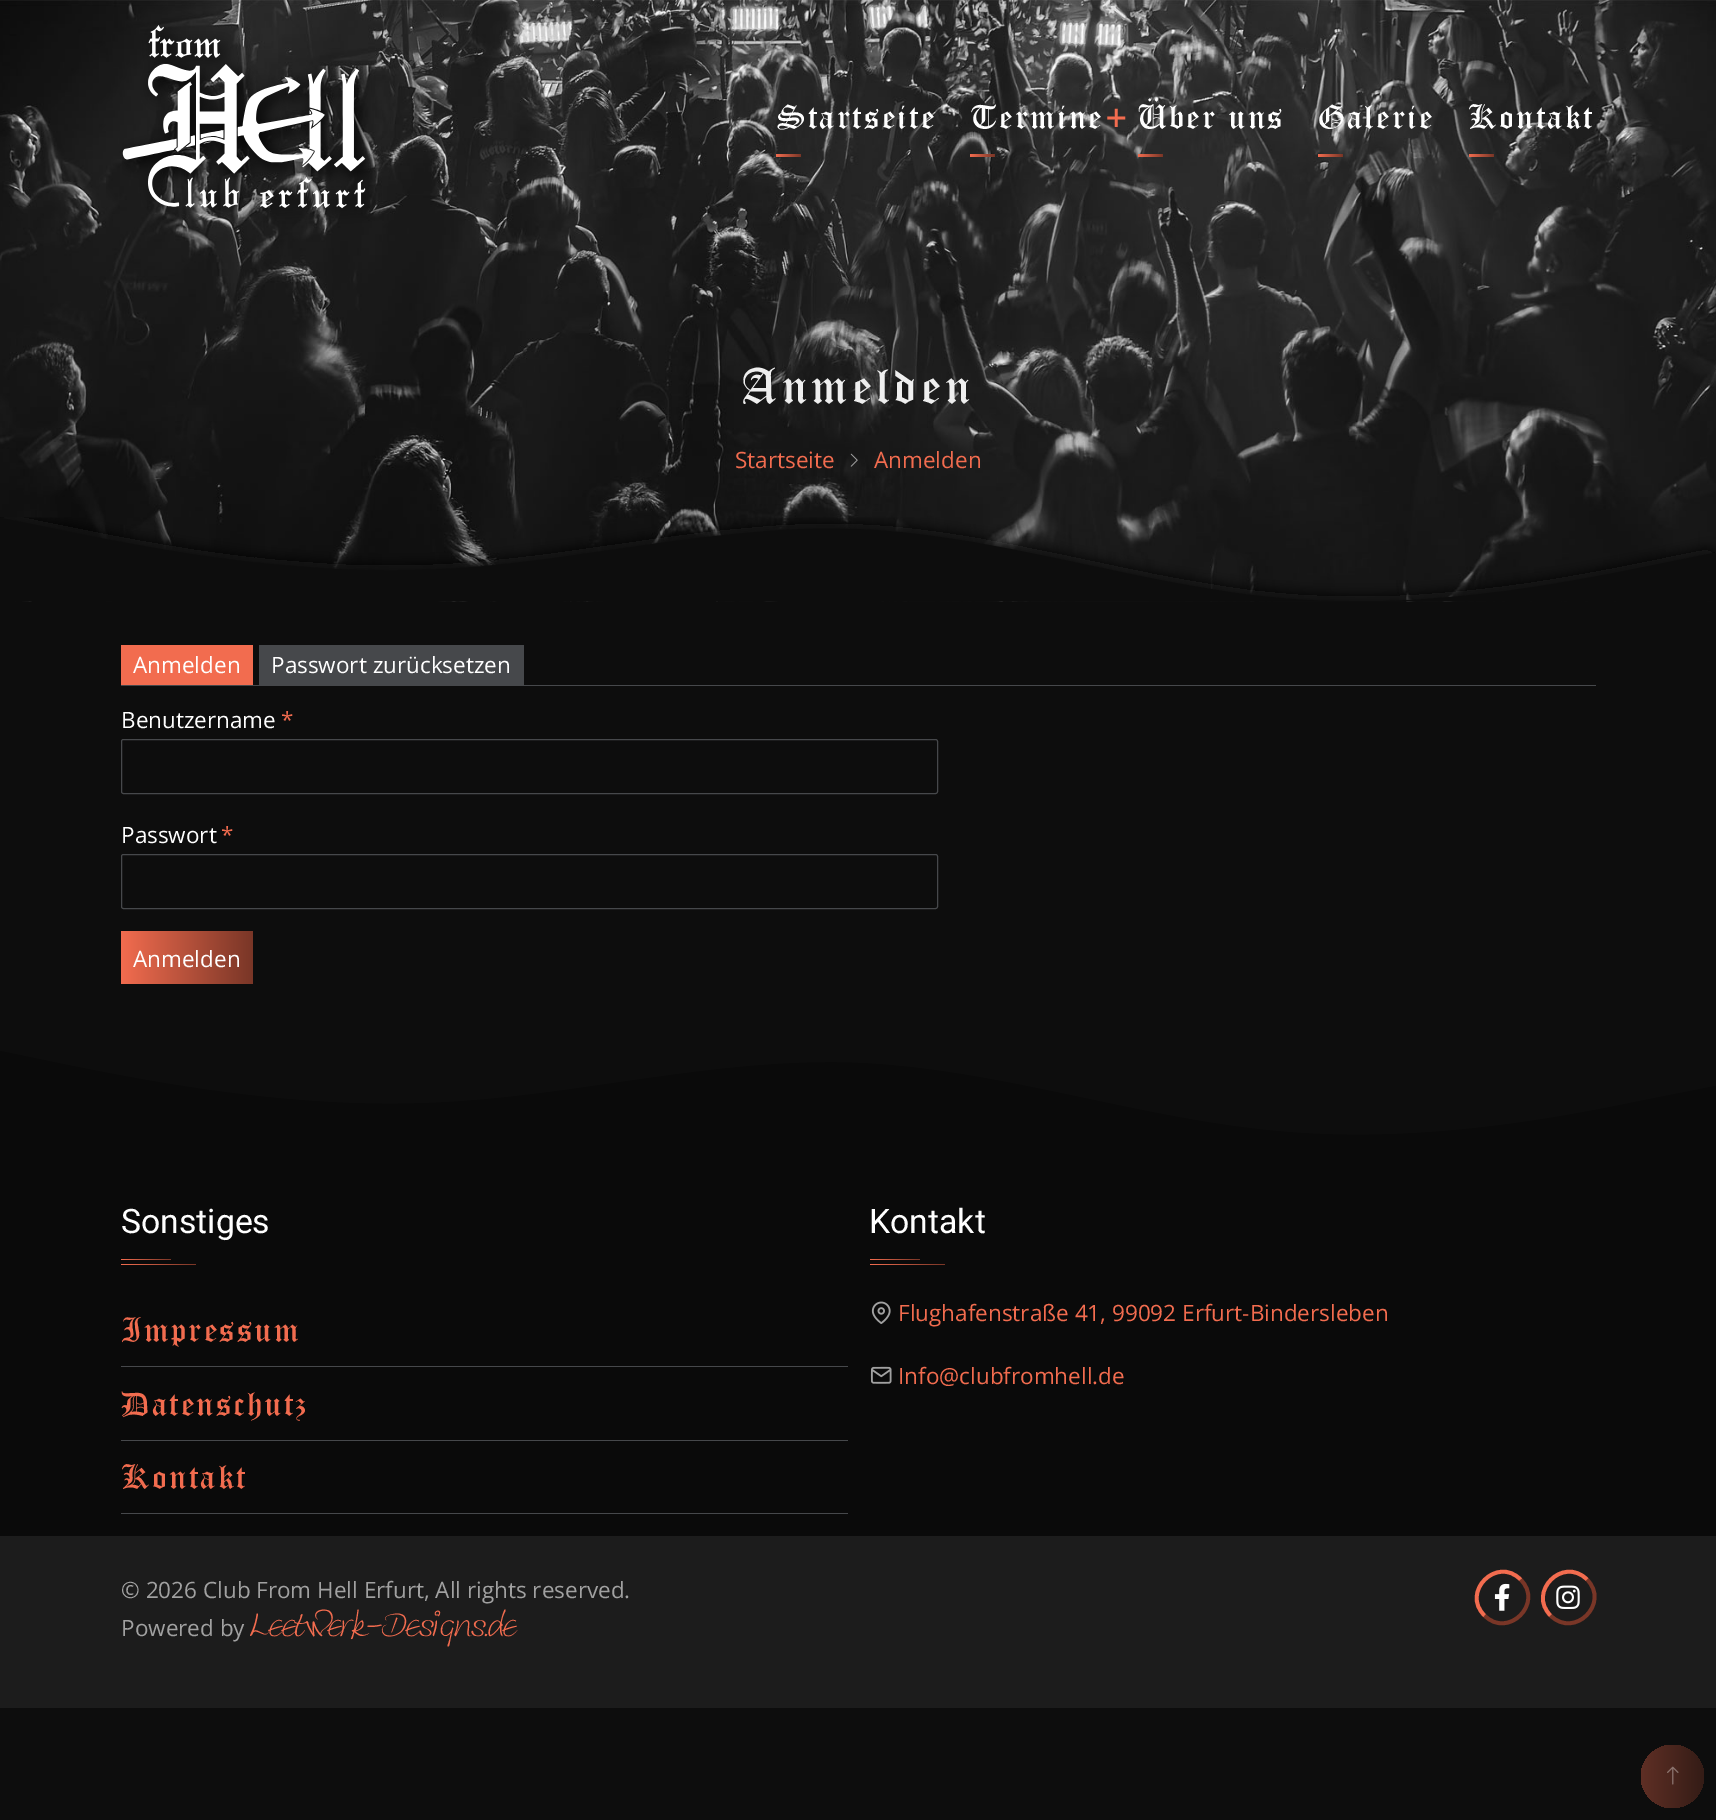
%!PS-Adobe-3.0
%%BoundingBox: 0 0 1716 1820
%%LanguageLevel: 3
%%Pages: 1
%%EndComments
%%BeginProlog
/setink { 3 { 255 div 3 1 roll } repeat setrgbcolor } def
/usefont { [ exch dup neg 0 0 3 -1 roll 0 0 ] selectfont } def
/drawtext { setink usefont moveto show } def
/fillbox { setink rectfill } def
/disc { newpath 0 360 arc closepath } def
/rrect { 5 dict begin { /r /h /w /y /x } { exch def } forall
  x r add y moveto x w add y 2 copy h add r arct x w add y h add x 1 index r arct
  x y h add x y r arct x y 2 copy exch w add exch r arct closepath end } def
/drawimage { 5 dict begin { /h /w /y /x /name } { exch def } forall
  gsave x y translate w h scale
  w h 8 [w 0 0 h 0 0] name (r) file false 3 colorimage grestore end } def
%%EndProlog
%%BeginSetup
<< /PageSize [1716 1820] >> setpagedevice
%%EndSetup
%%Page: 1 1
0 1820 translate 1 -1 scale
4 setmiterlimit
0 0 1716 1820 13 13 13 fillbox
(assets/img1.rgb) 0 0 1716 602 drawimage
(assets/img2.rgb) 122 25 255 199 drawimage
/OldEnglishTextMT-Regular 33.75 usefont
255 255 255 setink
777 129 moveto 2.25 0 (Startseite) ashow
gsave 776 154 moveto 801 154 lineto 801 157 lineto 776 157 lineto closepath clip newpath
<< /ShadingType 2 /ColorSpace /DeviceRGB /Coords [776 155 801 155] /Extend [true true] /Function << /FunctionType 2 /Domain [0 1] /C0 [0.949 0.424 0.31] /C1 [0.475 0.212 0.153] /N 1 >> >> shfill grestore
970 129 moveto 2.25 0 (Termine) ashow
242 108 79 setink
1105 129 moveto 2.25 0 (+) ashow
gsave 970 154 moveto 995 154 lineto 995 157 lineto 970 157 lineto closepath clip newpath
<< /ShadingType 2 /ColorSpace /DeviceRGB /Coords [970 155 995 155] /Extend [true true] /Function << /FunctionType 2 /Domain [0 1] /C0 [0.949 0.424 0.31] /C1 [0.475 0.212 0.153] /N 1 >> >> shfill grestore
255 255 255 setink
1138 129 moveto 2.25 0 (Über uns) ashow
gsave 1138 154 moveto 1163 154 lineto 1163 157 lineto 1138 157 lineto closepath clip newpath
<< /ShadingType 2 /ColorSpace /DeviceRGB /Coords [1138 155 1163 155] /Extend [true true] /Function << /FunctionType 2 /Domain [0 1] /C0 [0.949 0.424 0.31] /C1 [0.475 0.212 0.153] /N 1 >> >> shfill grestore
1318 129 moveto 2.25 0 (Galerie) ashow
gsave 1318 154 moveto 1343 154 lineto 1343 157 lineto 1318 157 lineto closepath clip newpath
<< /ShadingType 2 /ColorSpace /DeviceRGB /Coords [1318 155 1343 155] /Extend [true true] /Function << /FunctionType 2 /Domain [0 1] /C0 [0.949 0.424 0.31] /C1 [0.475 0.212 0.153] /N 1 >> >> shfill grestore
1468 129 moveto 2.25 0 (Kontakt) ashow
gsave 1469 154 moveto 1494 154 lineto 1494 157 lineto 1469 157 lineto closepath clip newpath
<< /ShadingType 2 /ColorSpace /DeviceRGB /Coords [1469 155 1494 155] /Extend [true true] /Function << /FunctionType 2 /Domain [0 1] /C0 [0.949 0.424 0.31] /C1 [0.475 0.212 0.153] /N 1 >> >> shfill grestore
/OldEnglishTextMT-Regular 49.5 usefont
238 238 238 setink
741 404 moveto 4.5 0 (Anmelden) ashow
(Startseite) 735 468 /OpenSans-Regular 22.5 242 108 79 drawtext
(assets/img3.rgb) 850 453 8 14 drawimage
(Anmelden) 874 468 /OpenSans-Regular 22.5 242 108 79 drawtext
(assets/img4.rgb) 0 517 1716 85 drawimage
121 685 1475 1 70 72 75 fillbox
121 645 132 40 242 108 79 fillbox
(Anmelden) 133 673 /OpenSans-Regular 22.5 255 255 255 drawtext
259 645 265 40 70 72 75 fillbox
(Passwort zurücksetzen) 271 673 /OpenSans-Regular 22.5 255 255 255 drawtext
(Benutzername) 121 728 /OpenSans-Regular 22.5 255 255 255 drawtext
(*) 281 728 /OpenSans-Regular 22.5 242 108 79 drawtext
70 72 75 setink
121.5 739.5 816 54 2 rrect stroke
(Passwort) 121 843 /OpenSans-Regular 22.5 255 255 255 drawtext
(*) 221 843 /OpenSans-Regular 22.5 242 108 79 drawtext
70 72 75 setink
121.5 854.5 816 54 2 rrect stroke
gsave 121 931 132 53 2.5 rrect clip newpath
<< /ShadingType 2 /ColorSpace /DeviceRGB /Coords [121 958 253 958] /Extend [true true] /Function << /FunctionType 2 /Domain [0 1] /C0 [0.949 0.424 0.31] /C1 [0.475 0.212 0.153] /N 1 >> >> shfill grestore
(Anmelden) 133 967 /OpenSans-Regular 22.5 255 255 255 drawtext
10 10 10 setink
0 1051 moveto 72 1066 lineto 143 1080 286 1109 429 1103 curveto 572 1098 715 1057 858 1063 curveto 1001 1069 1144 1121 1287 1132 curveto 1430 1144 1573 1115 1645 1100 curveto 1716 1086 lineto 1716 1173 lineto 0 1173 lineto closepath eofill
0 1173 1716 363 10 10 10 fillbox
(Sonstiges) 121 1233 /Roboto-Regular 33.75 255 255 255 drawtext
gsave 121 1259 moveto 171 1259 lineto 171 1260 lineto 121 1260 lineto closepath clip newpath
<< /ShadingType 2 /ColorSpace /DeviceRGB /Coords [121 1259 171 1259] /Extend [true true] /Function << /FunctionType 2 /Domain [0 1] /C0 [0.949 0.424 0.31] /C1 [0.475 0.212 0.153] /N 1 >> >> shfill grestore
gsave 121 1264 moveto 196 1264 lineto 196 1265 lineto 121 1265 lineto closepath clip newpath
<< /ShadingType 2 /ColorSpace /DeviceRGB /Coords [121 1264 196 1264] /Extend [true true] /Function << /FunctionType 2 /Domain [0 1] /C0 [0.949 0.424 0.31] /C1 [0.475 0.212 0.153] /N 1 >> >> shfill grestore
121 1366 727 1 70 72 75 fillbox
/OldEnglishTextMT-Regular 33.75 usefont
242 108 79 setink
121 1342 moveto 2.25 0 (Impressum) ashow
121 1440 727 1 70 72 75 fillbox
242 108 79 setink
121 1416 moveto 2.25 0 (Datenschutz) ashow
121 1513 727 1 70 72 75 fillbox
242 108 79 setink
121 1489 moveto 2.25 0 (Kontakt) ashow
(Kontakt) 869 1233 /Roboto-Regular 33.75 255 255 255 drawtext
gsave 870 1259 moveto 920 1259 lineto 920 1260 lineto 870 1260 lineto closepath clip newpath
<< /ShadingType 2 /ColorSpace /DeviceRGB /Coords [870 1259 920 1259] /Extend [true true] /Function << /FunctionType 2 /Domain [0 1] /C0 [0.949 0.424 0.31] /C1 [0.475 0.212 0.153] /N 1 >> >> shfill grestore
gsave 870 1264 moveto 945 1264 lineto 945 1265 lineto 870 1265 lineto closepath clip newpath
<< /ShadingType 2 /ColorSpace /DeviceRGB /Coords [870 1264 945 1264] /Extend [true true] /Function << /FunctionType 2 /Domain [0 1] /C0 [0.949 0.424 0.31] /C1 [0.475 0.212 0.153] /N 1 >> >> shfill grestore
(assets/img5.rgb) 871 1301 20 23 drawimage
(Flughafenstraße 41, 99092 Erfurt-Bindersleben) 898 1321 /OpenSans-Regular 22.5 242 108 79 drawtext
(assets/img6.rgb) 870 1366 22 18 drawimage
(Info@clubfromhell.de) 898 1384 /OpenSans-Regular 22.5 242 108 79 drawtext
0 1536 1716 172 28 28 28 fillbox
(© 2026 Club From Hell Erfurt, All rights reserved.) 121 1598 /OpenSans-Regular 22.5 161 161 161 drawtext
(Powered by) 121 1636 /OpenSans-Regular 22.5 161 161 161 drawtext
(Leetwerk-Designs.de) 250 1636 /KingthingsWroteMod-Thin 22.5 242 108 79 drawtext
121 54 39 setink
3.8 setlinewidth
1520.5 1579.5 moveto 1544.5 1603 1508 1639.5 1484.5 1615.5 curveto stroke
242 108 79 setink
1484.5 1615.5 moveto 1460.5 1592 1497 1555.5 1520.5 1579.5 curveto stroke
(assets/img7.rgb) 1494 1583 16 28 drawimage
121 54 39 setink
1587 1579.5 moveto 1610.5 1603 1574.5 1639.5 1550.5 1615.5 curveto stroke
242 108 79 setink
1550.5 1615.5 moveto 1527 1592 1563 1555.5 1587 1579.5 curveto stroke
(assets/img8.rgb) 1556 1585 24 24 drawimage
gsave 1672.5 1776.5 31.5 disc clip newpath
<< /ShadingType 2 /ColorSpace /DeviceRGB /Coords [1641 1776 1704 1776] /Extend [true true] /Function << /FunctionType 2 /Domain [0 1] /C0 [0.373 0.184 0.145] /C1 [0.204 0.11 0.086] /N 1 >> >> shfill grestore
(assets/img9.rgb) 1667 1766 12 19 drawimage
showpage
%%EOF
